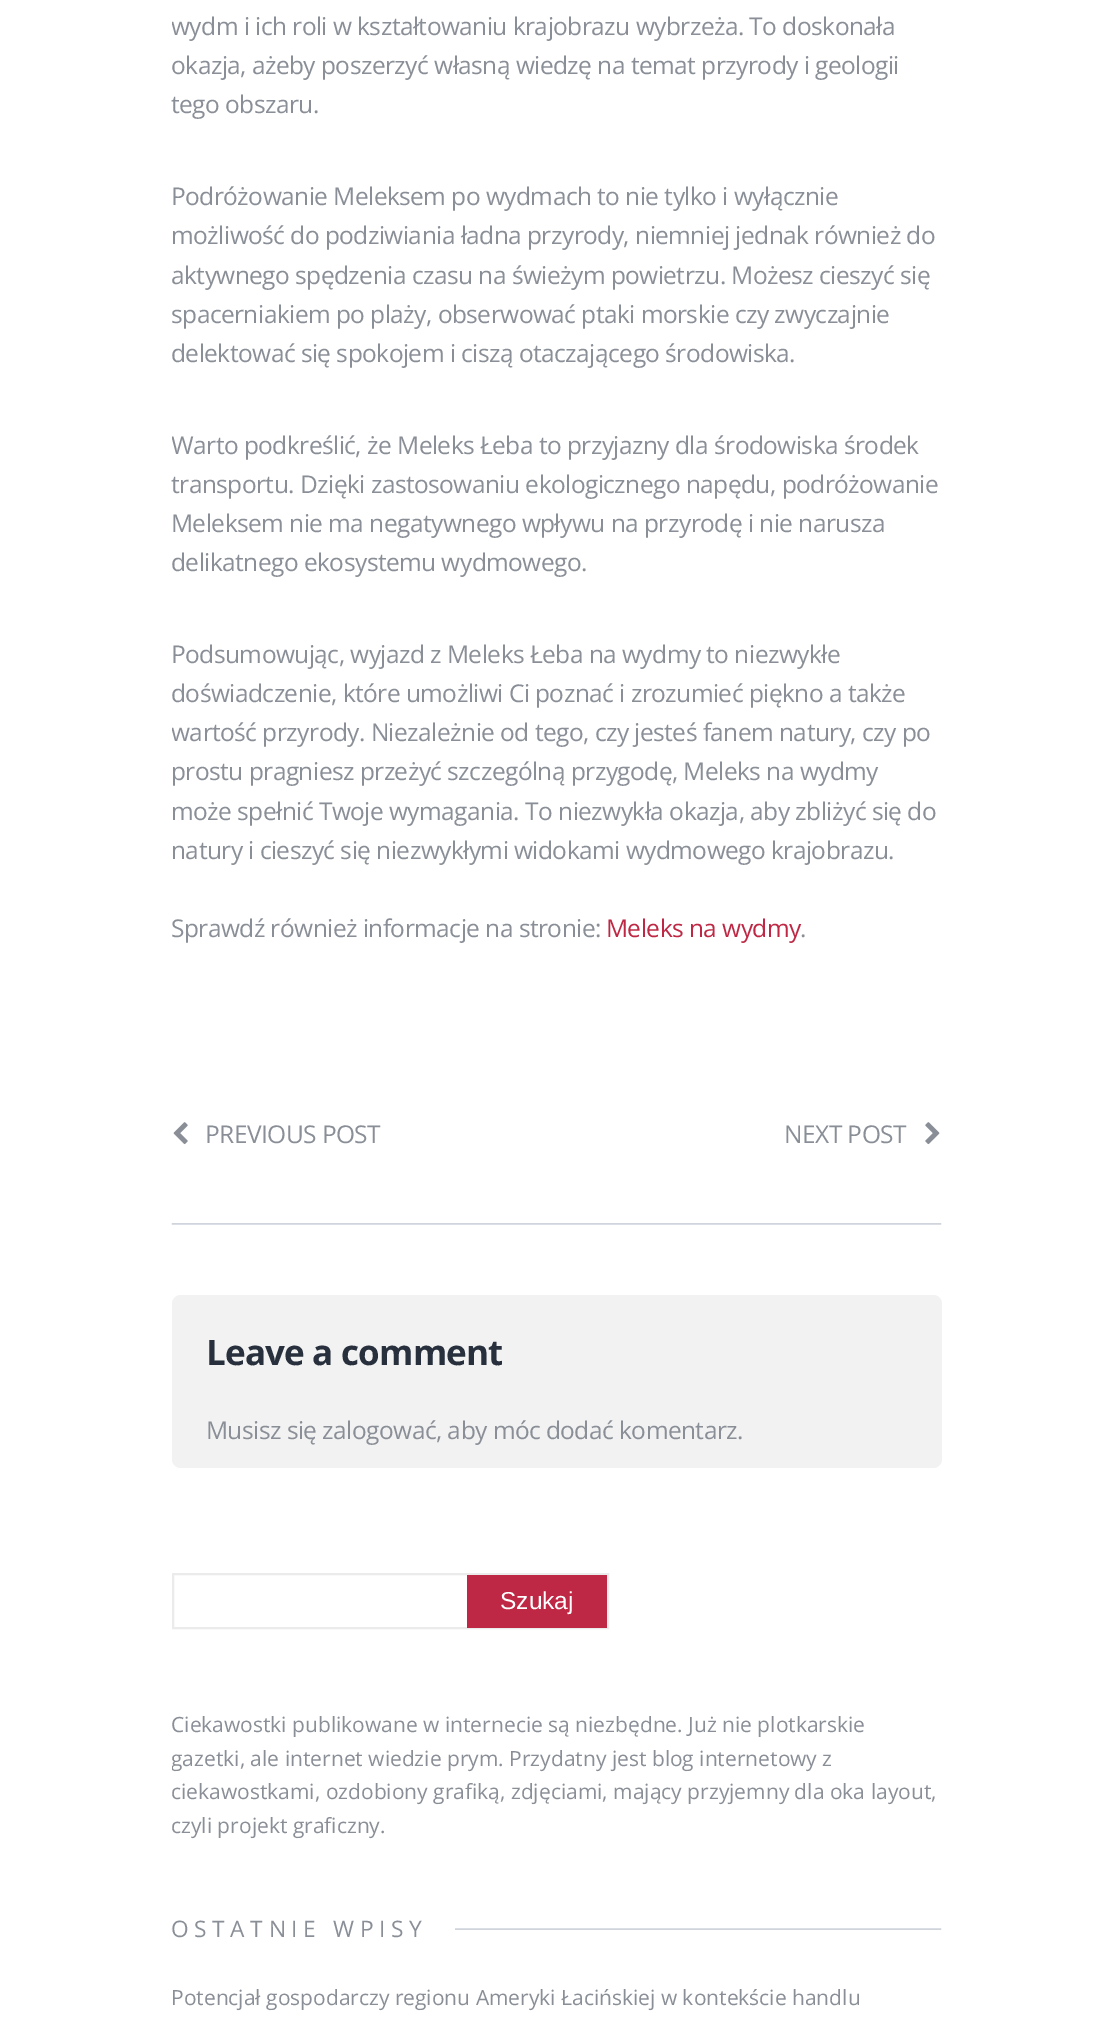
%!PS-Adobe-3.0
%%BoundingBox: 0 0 1111 2025
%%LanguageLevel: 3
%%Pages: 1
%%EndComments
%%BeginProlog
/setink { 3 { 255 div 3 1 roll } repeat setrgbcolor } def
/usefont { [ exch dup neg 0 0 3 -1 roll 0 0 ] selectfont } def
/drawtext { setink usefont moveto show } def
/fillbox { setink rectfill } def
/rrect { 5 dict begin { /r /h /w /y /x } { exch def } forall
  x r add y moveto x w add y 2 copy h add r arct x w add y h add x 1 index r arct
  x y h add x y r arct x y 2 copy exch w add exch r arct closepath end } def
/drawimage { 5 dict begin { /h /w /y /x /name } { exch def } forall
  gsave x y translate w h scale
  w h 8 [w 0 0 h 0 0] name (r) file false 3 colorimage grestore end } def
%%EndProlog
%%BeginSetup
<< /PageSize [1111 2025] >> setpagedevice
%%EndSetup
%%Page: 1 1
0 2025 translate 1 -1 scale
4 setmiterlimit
0 0 1111 2025 255 255 255 fillbox
gsave
172 0 770 1521 rectclip
/OpenSans-Regular 24.5 usefont
138 143 151 setink
171 35 moveto -0.55 0 (wydm i ich roli w kształtowaniu krajobrazu wybrzeża. To doskonała) ashow
grestore
/OpenSans-Regular 24.5 usefont
138 143 151 setink
171 74 moveto -0.55 0 (okazja, ażeby poszerzyć własną wiedzę na temat przyrody i geologii) ashow
171 113 moveto -0.55 0 (tego obszaru.) ashow
171 205 moveto -0.55 0 (Podróżowanie Meleksem po wydmach to nie tylko i wyłącznie) ashow
171 244 moveto -0.55 0 (możliwość do podziwiania ładna przyrody, niemniej jednak również do) ashow
gsave
172 0 770 1521 rectclip
171 284 moveto -0.55 0 (aktywnego spędzenia czasu na świeżym powietrzu. Możesz cieszyć się) ashow
171 323 moveto -0.55 0 (spacerniakiem po plaży, obserwować ptaki morskie czy zwyczajnie) ashow
grestore
171 362 moveto -0.55 0 (delektować się spokojem i ciszą otaczającego środowiska.) ashow
gsave
172 0 770 1521 rectclip
171 454 moveto -0.55 0 (Warto podkreślić, że Meleks Łeba to przyjazny dla środowiska środek) ashow
grestore
171 493 moveto -0.55 0 (transportu. Dzięki zastosowaniu ekologicznego napędu, podróżowanie) ashow
171 532 moveto -0.55 0 (Meleksem nie ma negatywnego wpływu na przyrodę i nie narusza) ashow
171 571 moveto -0.55 0 (delikatnego ekosystemu wydmowego.) ashow
171 663 moveto -0.55 0 (Podsumowując, wyjazd z Meleks Łeba na wydmy to niezwykłe) ashow
171 702 moveto -0.55 0 (doświadczenie, które umożliwi Ci poznać i zrozumieć piękno a także) ashow
gsave
172 0 770 1521 rectclip
171 741 moveto -0.55 0 (wartość przyrody. Niezależnie od tego, czy jesteś fanem natury, czy po) ashow
grestore
171 780 moveto -0.55 0 (prostu pragniesz przeżyć szczególną przygodę, Meleks na wydmy) ashow
171 820 moveto -0.55 0 (może spełnić Twoje wymagania. To niezwykła okazja, aby zbliżyć się do) ashow
171 859 moveto -0.55 0 (natury i cieszyć się niezwykłymi widokami wydmowego krajobrazu.) ashow
171 937 moveto -0.55 0 (Sprawdź również informacje na stronie:) ashow
190 40 68 setink
606 937 moveto -0.55 0 (Meleks na wydmy) ashow
138 143 151 setink
800 937 moveto -0.55 0 (.) ashow
(assets/img1.rgb) 173 1122 15 23 drawimage
205 1143 moveto -0.55 0 (PREVIOUS POST) ashow
784 1143 moveto -0.55 0 (NEXT POST) ashow
(assets/img2.rgb) 925 1122 15 23 drawimage
(assets/img3.rgb) 171 1223 771 2 drawimage
242 242 242 setink
172 1295 770 173 9 rrect fill
/OpenSans-Bold 35 usefont
39 48 60 setink
206 1365 moveto -0.8 0 (Leave a comment) ashow
/OpenSans-Regular 24.5 usefont
138 143 151 setink
206 1439 moveto -0.55 0 (Musisz się zalogować, aby móc dodać komentarz.) ashow
235 235 235 setink
2 setlinewidth
173 1574 435 54 rectstroke
467 1575 140 53 190 40 68 fillbox
(Szukaj) 500 1609 /LiberationSans-Regular 24.5 255 255 255 drawtext
(Ciekawostki publikowane w internecie są niezbędne. Już nie plotkarskie) 171 1732 /OpenSans-Regular 21 138 143 151 drawtext
gsave
172 1573 770 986 rectclip
(gazetki, ale internet wiedzie prym. Przydatny jest blog internetowy z) 171 1766 /OpenSans-Regular 21 138 143 151 drawtext
(ciekawostkami, ozdobiony grafiką, zdjęciami, mający przyjemny dla oka layout,) 171 1799 /OpenSans-Regular 21 138 143 151 drawtext
(czyli projekt graficzny.) 171 1833 /OpenSans-Regular 21 138 143 151 drawtext
grestore
(assets/img4.rgb) 171 1928 771 2 drawimage
172 1928 283 2 255 255 255 fillbox
/OpenSans-Regular 22.75 usefont
138 143 151 setink
171 1937 moveto 5.6 0 (OSTATNIE WPISY) ashow
(Potencjał gospodarczy regionu Ameryki Łacińskiej w kontekście handlu) 171 2005 /OpenSans-Regular 21 138 143 151 drawtext
showpage
%%EOF
